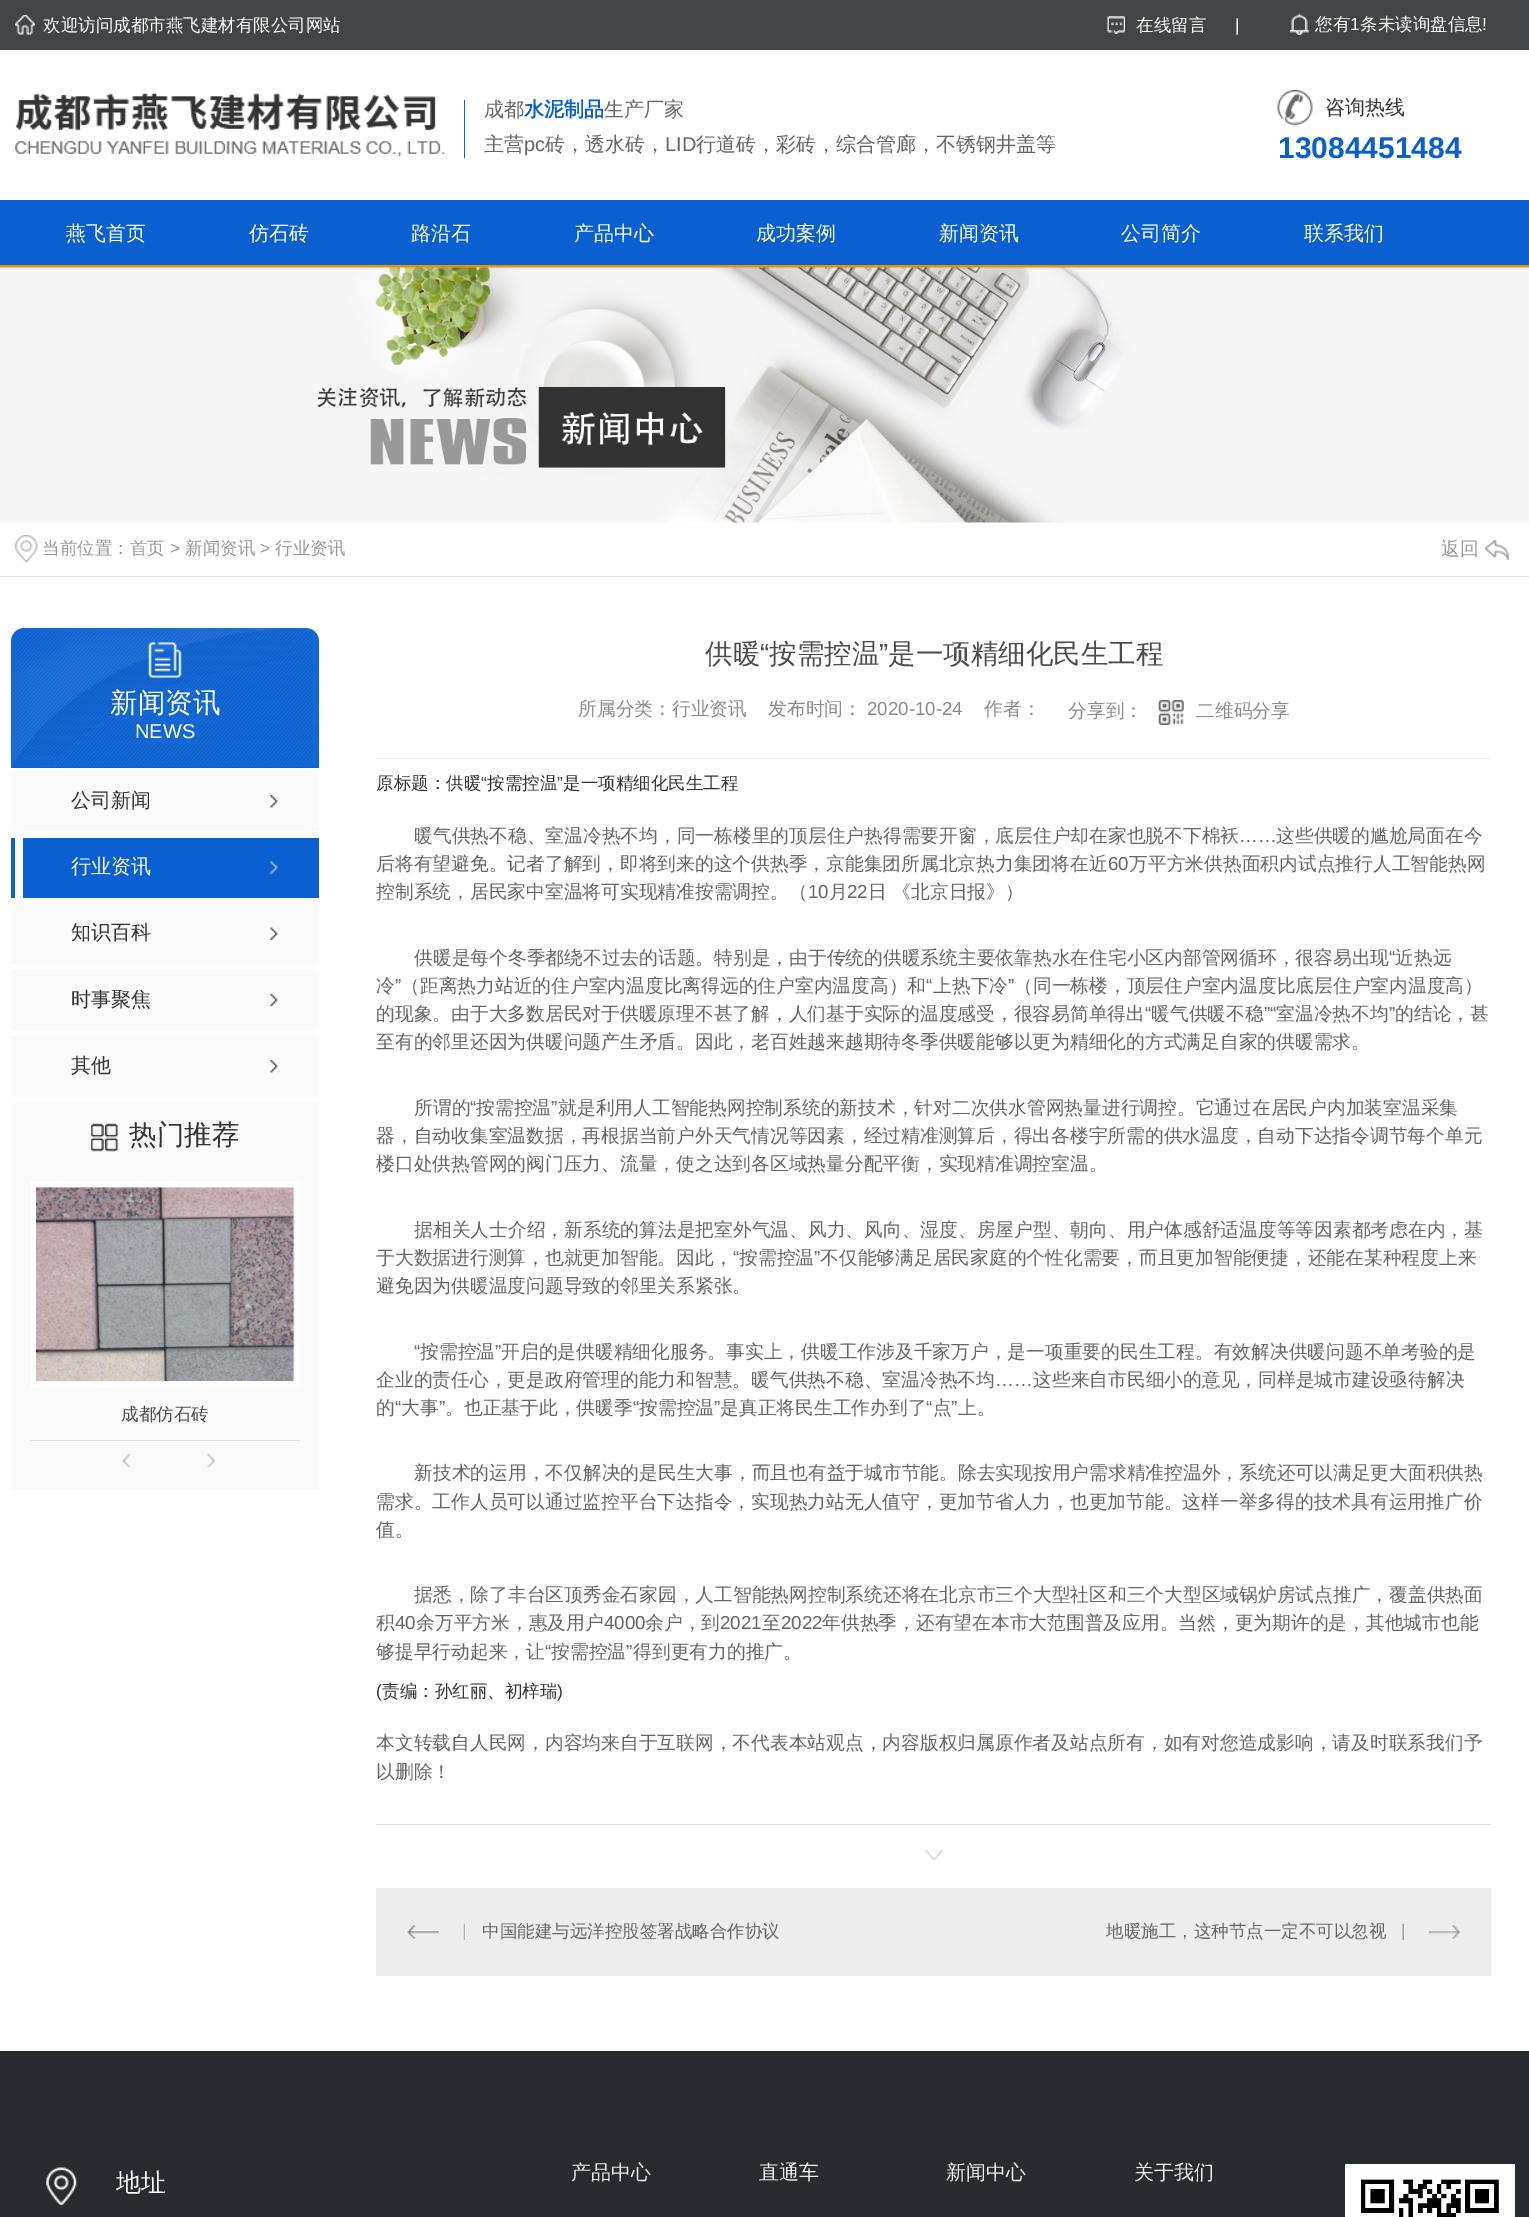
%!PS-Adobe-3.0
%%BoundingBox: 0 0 1529 2217
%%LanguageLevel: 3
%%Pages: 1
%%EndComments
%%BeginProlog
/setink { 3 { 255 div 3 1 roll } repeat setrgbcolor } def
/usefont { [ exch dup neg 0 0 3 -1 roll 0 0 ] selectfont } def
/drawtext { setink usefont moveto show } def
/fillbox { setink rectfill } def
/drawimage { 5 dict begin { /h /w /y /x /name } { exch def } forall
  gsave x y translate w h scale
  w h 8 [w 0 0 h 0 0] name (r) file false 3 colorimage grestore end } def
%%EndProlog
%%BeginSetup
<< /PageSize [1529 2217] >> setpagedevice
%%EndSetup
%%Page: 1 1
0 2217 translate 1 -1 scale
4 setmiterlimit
0 0 1529 2217 255 255 255 fillbox
0 0 1529 50 66 68 72 fillbox
(assets/img1.rgb) 15 15 20 20 drawimage
(欢迎访问成都市燕飞建材有限公司网站) 43 31 /WenQuanYiZenHei-Medium 17.5 255 255 255 drawtext
(assets/img2.rgb) 1107 16 18 18 drawimage
(在线留言) 1136 31 /WenQuanYiZenHei-Medium 17.5 255 255 255 drawtext
(|) 1235 31 /LiberationSans-Regular 17.5 255 255 255 drawtext
(assets/img3.rgb) 1290 13 19 22 drawimage
(您有) 1315 30 /WenQuanYiZenHei-Medium 17.5 255 255 255 drawtext
(1) 1350 30 /LiberationSans-Regular 17.5 255 255 255 drawtext
(条未读询盘信息) 1360 30 /WenQuanYiZenHei-Medium 17.5 255 255 255 drawtext
(!) 1482 30 /LiberationSans-Regular 17.5 255 255 255 drawtext
(assets/img4.rgb) 15 93 430 64 drawimage
464 100 1 58 10 96 209 fillbox
(成都) 484 116 /WenQuanYiZenHei-Medium 20 102 102 102 drawtext
(水泥制品) 524 116 /WenQuanYiZenHei-Bold 20 10 96 209 drawtext
(生产厂家) 604 116 /WenQuanYiZenHei-Medium 20 102 102 102 drawtext
(主营) 484 151 /WenQuanYiZenHei-Medium 20 102 102 102 drawtext
(pc) 524 151 /LiberationSans-Regular 20 102 102 102 drawtext
(砖，透水砖，) 545 151 /WenQuanYiZenHei-Medium 20 102 102 102 drawtext
(LID) 665 151 /LiberationSans-Regular 20 102 102 102 drawtext
(行道砖，彩砖，综合管廊，不锈钢井盖等) 696 151 /WenQuanYiZenHei-Medium 20 102 102 102 drawtext
(assets/img5.rgb) 1277 90 36 35 drawimage
(咨询热线) 1325 114 /WenQuanYiZenHei-Medium 20 51 51 51 drawtext
(13084451484) 1278 158 /LiberationSans-Bold 30 10 96 209 drawtext
0 200 1529 65 10 96 209 fillbox
0 265 1529 3 235 144 3 fillbox
(燕飞首页) 66 240 /WenQuanYiZenHei-Medium 20 255 255 255 drawtext
(仿石砖) 249 240 /WenQuanYiZenHei-Medium 20 255 255 255 drawtext
(路沿石) 411 240 /WenQuanYiZenHei-Medium 20 255 255 255 drawtext
(产品中心) 574 240 /WenQuanYiZenHei-Medium 20 255 255 255 drawtext
(成功案例) 756 240 /WenQuanYiZenHei-Medium 20 255 255 255 drawtext
(新闻资讯) 939 240 /WenQuanYiZenHei-Medium 20 255 255 255 drawtext
(公司简介) 1121 240 /WenQuanYiZenHei-Medium 20 255 255 255 drawtext
(联系我们) 1304 240 /WenQuanYiZenHei-Medium 20 255 255 255 drawtext
(assets/img6.rgb) 0 267 1529 256 drawimage
0 576 1529 1 230 230 230 fillbox
(assets/img7.rgb) 15 535 23 28 drawimage
(当前位置：首页) 42 554 /WenQuanYiZenHei-Medium 17.5 153 153 153 drawtext
(>) 170 554 /LiberationSans-Regular 17.5 153 153 153 drawtext
(新闻资讯) 185 554 /WenQuanYiZenHei-Medium 17.5 153 153 153 drawtext
(>) 260 554 /LiberationSans-Regular 17.5 153 153 153 drawtext
(行业资讯) 275 554 /WenQuanYiZenHei-Medium 17.5 153 153 153 drawtext
(返回) 1441 555 /WenQuanYiZenHei-Medium 18.75 153 153 153 drawtext
(assets/img8.rgb) 1485 540 24 20 drawimage
10 96 209 setink
24 628 moveto 306 628 lineto 313 628 319 634 319 641 curveto 319 768 lineto 11 768 lineto 11 641 lineto 11 634 17 628 24 628 curveto closepath fill
(assets/img9.rgb) 11 628 308 140 drawimage
(assets/img10.rgb) 148 642 34 36 drawimage
(新闻资讯) 110 712 /WenQuanYiZenHei-Medium 27.5 255 255 255 drawtext
(NEWS) 135 738 /LiberationSans-Regular 20 255 255 255 drawtext
11 771 308 60 250 250 250 fillbox
(assets/img11.rgb) 270 795 8 13 drawimage
(公司新闻) 71 807 /WenQuanYiZenHei-Medium 20 51 51 51 drawtext
11 838 308 60 10 96 209 fillbox
15 838 8 60 255 255 255 fillbox
(assets/img12.rgb) 270 861 8 13 drawimage
(行业资讯) 71 873 /WenQuanYiZenHei-Medium 20 255 255 255 drawtext
11 904 308 60 250 250 250 fillbox
(assets/img13.rgb) 270 927 8 13 drawimage
(知识百科) 71 939 /WenQuanYiZenHei-Medium 20 51 51 51 drawtext
11 970 308 60 250 250 250 fillbox
(assets/img14.rgb) 270 993 8 14 drawimage
(时事聚焦) 71 1006 /WenQuanYiZenHei-Medium 20 51 51 51 drawtext
11 1036 308 60 250 250 250 fillbox
(assets/img11.rgb) 270 1060 8 13 drawimage
(其他) 71 1072 /WenQuanYiZenHei-Medium 20 51 51 51 drawtext
11 1103 308 387 250 250 250 fillbox
(assets/img15.rgb) 91 1123 27 29 drawimage
(热门推荐) 129 1144 /WenQuanYiZenHei-Medium 27.5 51 51 51 drawtext
255 255 255 setink
6 setlinewidth
33 1184 264 201 rectstroke
(assets/img16.rgb) 36 1187 259 194 drawimage
30 1440 270 1 222 222 221 fillbox
(成都仿石砖) 121 1420 /WenQuanYiZenHei-Medium 17.5 76 76 76 drawtext
(assets/img17.rgb) 122 1453 8 15 drawimage
(assets/img18.rgb) 207 1453 8 15 drawimage
(供暖) 705 663 /WenQuanYiZenHei-Medium 27.5 76 76 76 drawtext
(“) 760 663 /LiberationSans-Regular 27.5 76 76 76 drawtext
(按需控温) 769 663 /WenQuanYiZenHei-Medium 27.5 76 76 76 drawtext
(”) 879 663 /LiberationSans-Regular 27.5 76 76 76 drawtext
(是一项精细化民生工程) 888 663 /WenQuanYiZenHei-Medium 27.5 76 76 76 drawtext
(所属分类：行业资讯) 578 715 /WenQuanYiZenHei-Medium 18.75 140 140 140 drawtext
(发布时间：) 768 715 /WenQuanYiZenHei-Medium 18.75 140 140 140 drawtext
(2020-10-24) 867 715 /LiberationSans-Regular 18.75 140 140 140 drawtext
(作者：) 984 715 /WenQuanYiZenHei-Medium 18.75 140 140 140 drawtext
(分享到：) 1068 717 /WenQuanYiZenHei-Medium 18.75 140 140 140 drawtext
(assets/img19.rgb) 1158 700 26 25 drawimage
(二维码分享) 1196 717 /WenQuanYiZenHei-Medium 18.75 140 140 140 drawtext
376 758 1115 1 237 237 237 fillbox
376 1824 1115 1 221 221 221 fillbox
(原标题：供暖) 376 789 /WenQuanYiZenHei-Medium 17.5 51 51 51 drawtext
(“) 481 789 /LiberationSans-Regular 17.5 51 51 51 drawtext
(按需控温) 487 789 /WenQuanYiZenHei-Medium 17.5 51 51 51 drawtext
(”) 557 789 /LiberationSans-Regular 17.5 51 51 51 drawtext
(是一项精细化民生工程) 563 789 /WenQuanYiZenHei-Medium 17.5 51 51 51 drawtext
(暖气供热不稳、室温冷热不均，同一栋楼里的顶层住户热得需要开窗，底层住户却在家也脱不下棉袄) 414 842 /WenQuanYiZenHei-Medium 18.75 102 102 102 drawtext
(……) 1239 842 /LiberationSans-Regular 18.75 102 102 102 drawtext
(这些供暖的尴尬局面在今) 1276 842 /WenQuanYiZenHei-Medium 18.75 102 102 102 drawtext
(后将有望避免。记者了解到，即将到来的这个供热季，京能集团所属北京热力集团将在近) 376 870 /WenQuanYiZenHei-Medium 18.75 102 102 102 drawtext
(60) 1108 870 /LiberationSans-Regular 18.75 102 102 102 drawtext
(万平方米供热面积内试点推行人工智能热网) 1129 870 /WenQuanYiZenHei-Medium 18.75 102 102 102 drawtext
(控制系统，居民家中室温将可实现精准按需调控。（) 376 898 /WenQuanYiZenHei-Medium 18.75 102 102 102 drawtext
(10) 808 898 /LiberationSans-Regular 18.75 102 102 102 drawtext
(月) 829 898 /WenQuanYiZenHei-Medium 18.75 102 102 102 drawtext
(22) 847 898 /LiberationSans-Regular 18.75 102 102 102 drawtext
(日 《北京日报》）) 868 898 /WenQuanYiZenHei-Medium 18.75 102 102 102 drawtext
(供暖是每个冬季都绕不过去的话题。特别是，由于传统的供暖系统主要依靠热水在住宅小区内部管网循环，很容易出现) 414 964 /WenQuanYiZenHei-Medium 18.75 102 102 102 drawtext
(“) 1389 964 /LiberationSans-Regular 18.75 102 102 102 drawtext
(近热远) 1395 964 /WenQuanYiZenHei-Medium 18.75 102 102 102 drawtext
(冷) 376 992 /WenQuanYiZenHei-Medium 18.75 102 102 102 drawtext
(”) 395 992 /LiberationSans-Regular 18.75 102 102 102 drawtext
(（距离热力站近的住户室内温度比离得远的住户室内温度高）和) 401 992 /WenQuanYiZenHei-Medium 18.75 102 102 102 drawtext
(“) 926 992 /LiberationSans-Regular 18.75 102 102 102 drawtext
(上热下冷) 933 992 /WenQuanYiZenHei-Medium 18.75 102 102 102 drawtext
(”) 1008 992 /LiberationSans-Regular 18.75 102 102 102 drawtext
(（同一栋楼，顶层住户室内温度比底层住户室内温度高）) 1014 992 /WenQuanYiZenHei-Medium 18.75 102 102 102 drawtext
(的现象。由于大多数居民对于供暖原理不甚了解，人们基于实际的温度感受，很容易简单得出) 376 1020 /WenQuanYiZenHei-Medium 18.75 102 102 102 drawtext
(“) 1145 1020 /LiberationSans-Regular 18.75 102 102 102 drawtext
(暖气供暖不稳) 1151 1020 /WenQuanYiZenHei-Medium 18.75 102 102 102 drawtext
(”“) 1264 1020 /LiberationSans-Regular 18.75 102 102 102 drawtext
(室温冷热不均) 1276 1020 /WenQuanYiZenHei-Medium 18.75 102 102 102 drawtext
(”) 1389 1020 /LiberationSans-Regular 18.75 102 102 102 drawtext
(的结论，甚) 1395 1020 /WenQuanYiZenHei-Medium 18.75 102 102 102 drawtext
(至有的邻里还因为供暖问题产生矛盾。因此，老百姓越来越期待冬季供暖能够以更为精细化的方式满足自家的供暖需求。) 376 1048 /WenQuanYiZenHei-Medium 18.75 102 102 102 drawtext
(所谓的) 414 1114 /WenQuanYiZenHei-Medium 18.75 102 102 102 drawtext
(“) 470 1114 /LiberationSans-Regular 18.75 102 102 102 drawtext
(按需控温) 476 1114 /WenQuanYiZenHei-Medium 18.75 102 102 102 drawtext
(”) 551 1114 /LiberationSans-Regular 18.75 102 102 102 drawtext
(就是利用人工智能热网控制系统的新技术，针对二次供水管网热量进行调控。它通过在居民户内加装室温采集) 558 1114 /WenQuanYiZenHei-Medium 18.75 102 102 102 drawtext
(器，自动收集室温数据，再根据当前户外天气情况等因素，经过精准测算后，得出各楼宇所需的供水温度，自动下达指令调节每个单元) 376 1142 /WenQuanYiZenHei-Medium 18.75 102 102 102 drawtext
(楼口处供热管网的阀门压力、流量，使之达到各区域热量分配平衡，实现精准调控室温。) 376 1170 /WenQuanYiZenHei-Medium 18.75 102 102 102 drawtext
(据相关人士介绍，新系统的算法是把室外气温、风力、风向、湿度、房屋户型、朝向、用户体感舒适温度等等因素都考虑在内，基) 414 1236 /WenQuanYiZenHei-Medium 18.75 102 102 102 drawtext
(于大数据进行测算，也就更加智能。因此，) 376 1264 /WenQuanYiZenHei-Medium 18.75 102 102 102 drawtext
(“) 733 1264 /LiberationSans-Regular 18.75 102 102 102 drawtext
(按需控温) 739 1264 /WenQuanYiZenHei-Medium 18.75 102 102 102 drawtext
(”) 814 1264 /LiberationSans-Regular 18.75 102 102 102 drawtext
(不仅能够满足居民家庭的个性化需要，而且更加智能便捷，还能在某种程度上来) 820 1264 /WenQuanYiZenHei-Medium 18.75 102 102 102 drawtext
(避免因为供暖温度问题导致的邻里关系紧张。) 376 1292 /WenQuanYiZenHei-Medium 18.75 102 102 102 drawtext
(“) 414 1358 /LiberationSans-Regular 18.75 102 102 102 drawtext
(按需控温) 420 1358 /WenQuanYiZenHei-Medium 18.75 102 102 102 drawtext
(”) 495 1358 /LiberationSans-Regular 18.75 102 102 102 drawtext
(开启的是供暖精细化服务。事实上，供暖工作涉及千家万户，是一项重要的民生工程。有效解决供暖问题不单考验的是) 501 1358 /WenQuanYiZenHei-Medium 18.75 102 102 102 drawtext
(企业的责任心，更是政府管理的能力和智慧。暖气供热不稳、室温冷热不均) 376 1386 /WenQuanYiZenHei-Medium 18.75 102 102 102 drawtext
(……) 995 1386 /LiberationSans-Regular 18.75 102 102 102 drawtext
(这些来自市民细小的意见，同样是城市建设亟待解决) 1033 1386 /WenQuanYiZenHei-Medium 18.75 102 102 102 drawtext
(的) 376 1414 /WenQuanYiZenHei-Medium 18.75 102 102 102 drawtext
(“) 395 1414 /LiberationSans-Regular 18.75 102 102 102 drawtext
(大事) 401 1414 /WenQuanYiZenHei-Medium 18.75 102 102 102 drawtext
(”) 439 1414 /LiberationSans-Regular 18.75 102 102 102 drawtext
(。也正基于此，供暖季) 445 1414 /WenQuanYiZenHei-Medium 18.75 102 102 102 drawtext
(“) 633 1414 /LiberationSans-Regular 18.75 102 102 102 drawtext
(按需控温) 639 1414 /WenQuanYiZenHei-Medium 18.75 102 102 102 drawtext
(”) 714 1414 /LiberationSans-Regular 18.75 102 102 102 drawtext
(是真正将民生工作办到了) 720 1414 /WenQuanYiZenHei-Medium 18.75 102 102 102 drawtext
(“) 926 1414 /LiberationSans-Regular 18.75 102 102 102 drawtext
(点) 933 1414 /WenQuanYiZenHei-Medium 18.75 102 102 102 drawtext
(”) 951 1414 /LiberationSans-Regular 18.75 102 102 102 drawtext
(上。) 958 1414 /WenQuanYiZenHei-Medium 18.75 102 102 102 drawtext
(新技术的运用，不仅解决的是民生大事，而且也有益于城市节能。除去实现按用户需求精准控温外，系统还可以满足更大面积供热) 414 1479 /WenQuanYiZenHei-Medium 18.75 102 102 102 drawtext
(需求。工作人员可以通过监控平台下达指令，实现热力站无人值守，更加节省人力，也更加节能。这样一举多得的技术具有运用推广价) 376 1508 /WenQuanYiZenHei-Medium 18.75 102 102 102 drawtext
(值。) 376 1536 /WenQuanYiZenHei-Medium 18.75 102 102 102 drawtext
(据悉，除了丰台区顶秀金石家园，人工智能热网控制系统还将在北京市三个大型社区和三个大型区域锅炉房试点推广，覆盖供热面) 414 1601 /WenQuanYiZenHei-Medium 18.75 102 102 102 drawtext
(积) 376 1629 /WenQuanYiZenHei-Medium 18.75 102 102 102 drawtext
(40) 395 1629 /LiberationSans-Regular 18.75 102 102 102 drawtext
(余万平方米，惠及用户) 416 1629 /WenQuanYiZenHei-Medium 18.75 102 102 102 drawtext
(4000) 604 1629 /LiberationSans-Regular 18.75 102 102 102 drawtext
(余户，到) 645 1629 /WenQuanYiZenHei-Medium 18.75 102 102 102 drawtext
(2021) 720 1629 /LiberationSans-Regular 18.75 102 102 102 drawtext
(至) 762 1629 /WenQuanYiZenHei-Medium 18.75 102 102 102 drawtext
(2022) 781 1629 /LiberationSans-Regular 18.75 102 102 102 drawtext
(年供热季，还有望在本市大范围普及应用。当然，更为期许的是，其他城市也能) 822 1629 /WenQuanYiZenHei-Medium 18.75 102 102 102 drawtext
(够提早行动起来，让) 376 1658 /WenQuanYiZenHei-Medium 18.75 102 102 102 drawtext
(“) 545 1658 /LiberationSans-Regular 18.75 102 102 102 drawtext
(按需控温) 551 1658 /WenQuanYiZenHei-Medium 18.75 102 102 102 drawtext
(”) 626 1658 /LiberationSans-Regular 18.75 102 102 102 drawtext
(得到更有力的推广。) 633 1658 /WenQuanYiZenHei-Medium 18.75 102 102 102 drawtext
(\() 376 1697 /LiberationSans-Regular 17.5 51 51 51 drawtext
(责编：孙红丽、初梓瑞) 382 1697 /WenQuanYiZenHei-Medium 17.5 51 51 51 drawtext
(\)) 557 1697 /LiberationSans-Regular 17.5 51 51 51 drawtext
(本文转载自人民网，内容均来自于互联网，不代表本站观点，内容版权归属原作者及站点所有，如有对您造成影响，请及时联系我们予) 376 1749 /WenQuanYiZenHei-Medium 18.75 102 102 102 drawtext
(以删除！) 376 1778 /WenQuanYiZenHei-Medium 18.75 102 102 102 drawtext
(assets/img20.rgb) 925 1850 18 11 drawimage
376 1888 1115 88 237 237 237 fillbox
(assets/img21.rgb) 407 1923 58 17 drawimage
(中国能建与远洋控股签署战略合作协议) 482 1937 /WenQuanYiZenHei-Medium 17.5 102 102 102 drawtext
(assets/img22.rgb) 1402 1923 58 17 drawimage
(地暖施工，这种节点一定不可以忽视) 1106 1937 /WenQuanYiZenHei-Medium 17.5 102 102 102 drawtext
0 2051 1529 166 40 44 49 fillbox
(assets/img23.rgb) 46 2167 31 38 drawimage
(地址) 116 2191 /WenQuanYiZenHei-Medium 25 255 255 255 drawtext
(产品中心) 571 2179 /WenQuanYiZenHei-Medium 20 238 238 238 drawtext
(直通车) 759 2179 /WenQuanYiZenHei-Medium 20 238 238 238 drawtext
(新闻中心) 946 2179 /WenQuanYiZenHei-Medium 20 238 238 238 drawtext
(关于我们) 1134 2179 /WenQuanYiZenHei-Medium 20 238 238 238 drawtext
1345 2164 170 53 255 255 255 fillbox
(assets/img24.rgb) 1361 2179 141 38 drawimage
showpage
%%EOF
